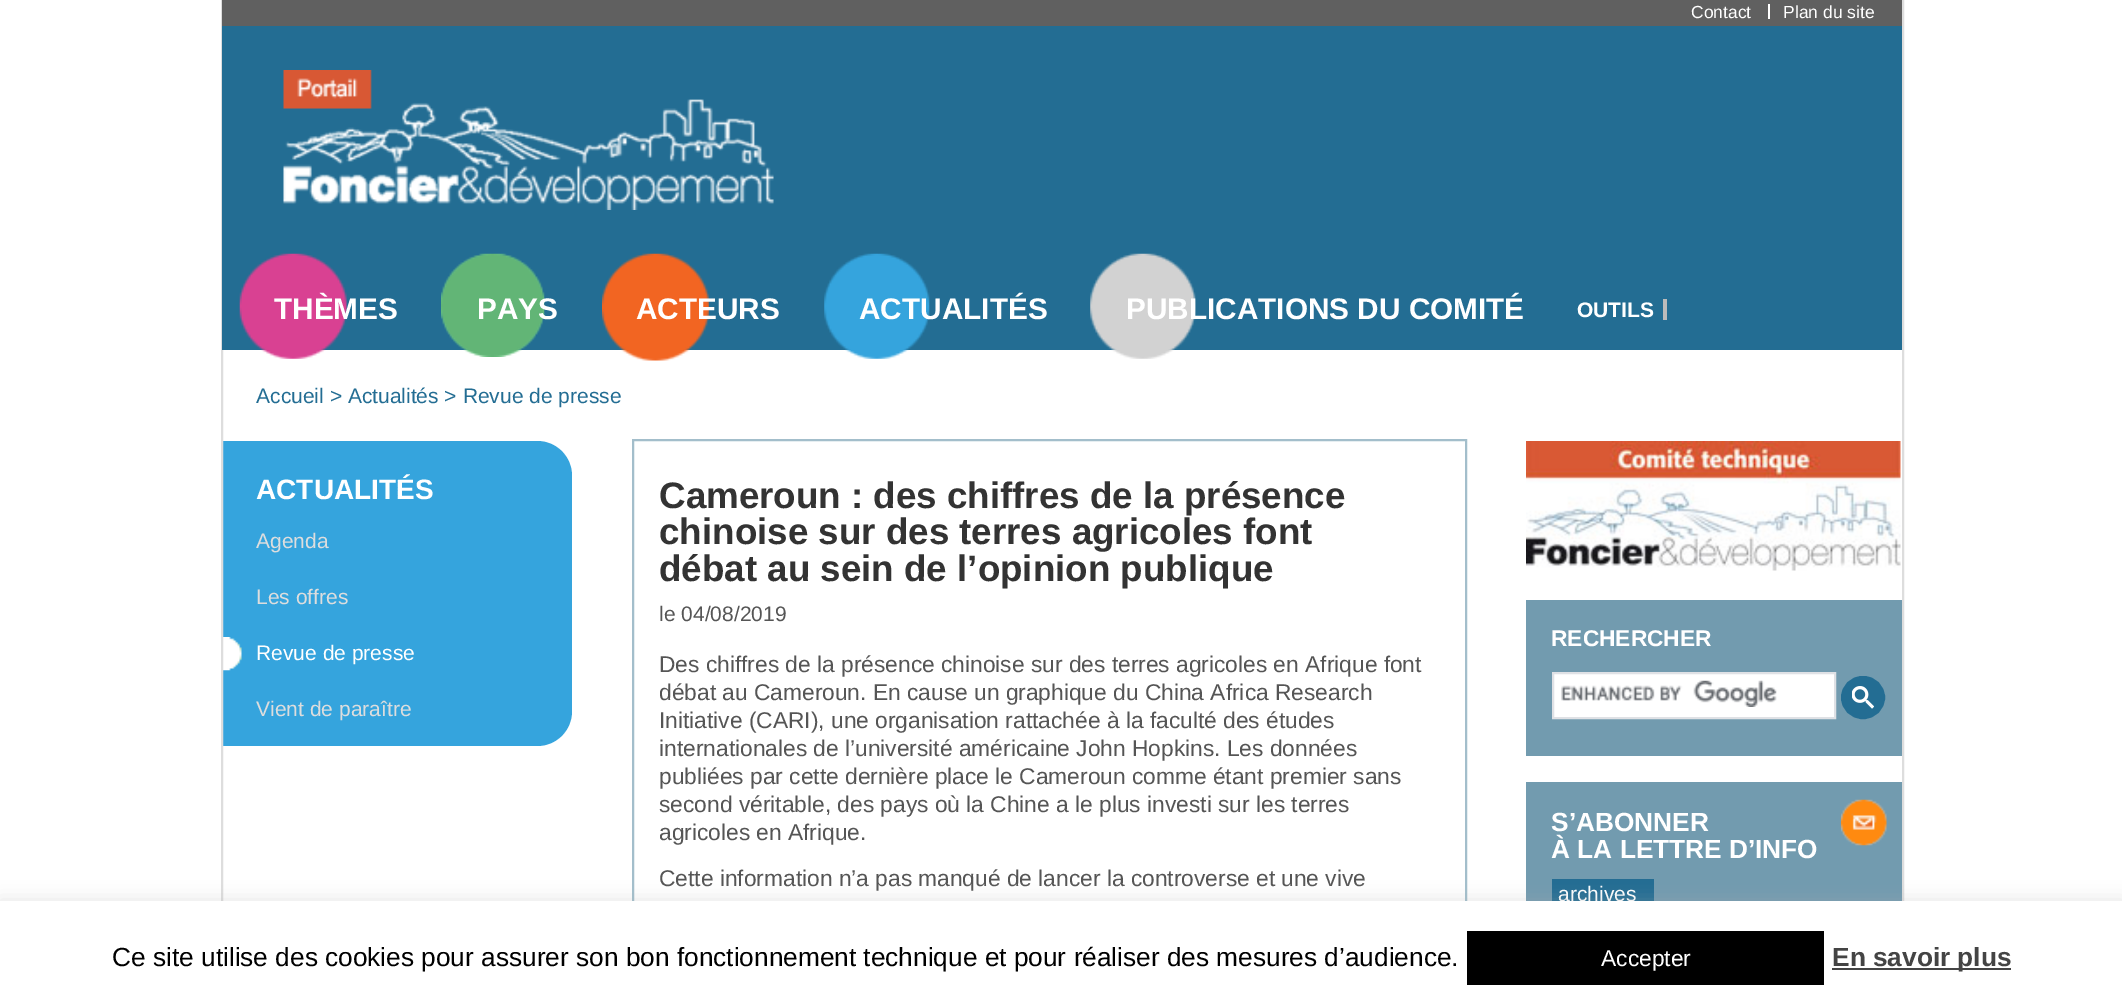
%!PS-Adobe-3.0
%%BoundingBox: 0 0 2122 1005
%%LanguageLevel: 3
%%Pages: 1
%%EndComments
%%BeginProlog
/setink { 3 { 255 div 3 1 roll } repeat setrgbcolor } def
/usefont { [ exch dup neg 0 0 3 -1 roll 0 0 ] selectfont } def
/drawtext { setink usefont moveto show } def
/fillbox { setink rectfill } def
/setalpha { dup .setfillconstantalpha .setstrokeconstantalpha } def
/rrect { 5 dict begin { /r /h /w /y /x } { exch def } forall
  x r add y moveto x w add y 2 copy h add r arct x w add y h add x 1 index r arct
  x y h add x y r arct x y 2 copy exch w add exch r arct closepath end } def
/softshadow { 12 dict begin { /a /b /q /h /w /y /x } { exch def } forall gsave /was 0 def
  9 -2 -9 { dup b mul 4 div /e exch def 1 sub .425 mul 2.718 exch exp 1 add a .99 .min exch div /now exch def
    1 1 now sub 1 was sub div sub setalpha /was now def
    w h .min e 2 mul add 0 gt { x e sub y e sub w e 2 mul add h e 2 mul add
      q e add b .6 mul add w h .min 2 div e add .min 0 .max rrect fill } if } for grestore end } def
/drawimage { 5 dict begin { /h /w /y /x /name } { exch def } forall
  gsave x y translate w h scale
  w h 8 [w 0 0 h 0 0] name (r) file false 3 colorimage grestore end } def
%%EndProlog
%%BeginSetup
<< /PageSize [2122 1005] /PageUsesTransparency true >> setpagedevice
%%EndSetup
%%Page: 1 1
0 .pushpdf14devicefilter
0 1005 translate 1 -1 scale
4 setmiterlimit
0 0 2122 1005 255 255 255 fillbox
53 164 221 setink
222 441 moveto 537 441 lineto 556.5 441 572 456.5 572 476 curveto 572 711 lineto 572 730.5 556.5 746 537 746 curveto 222 746 lineto closepath fill
(assets/img7.rgb) 223 637 19 34 drawimage
163 190 203 setink
2 setlinewidth
633 440 833 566 rectstroke
(assets/img8.rgb) 1526 441 375 130 drawimage
1526 600 376 156 114 155 175 fillbox
255 255 255 setink
1553 673 moveto 1835 673 lineto 1835 718 lineto 1553 718 lineto closepath gsave fill grestore
223 225 229 setink
stroke
(assets/img9.rgb) 1561 680 216 27 drawimage
35 109 147 setink
1842 677 42 41 20.5 rrect gsave fill grestore
stroke
1526 782 376 119 114 155 175 fillbox
(assets/img11.rgb) 1841 799 46 47 drawimage
1552 879 102 22 35 109 147 fillbox
221 221 221 setink
222 -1 1681 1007 rectstroke
222 26 1680 324 35 109 147 fillbox
222 0 1680 26 96 96 96 fillbox
1768 4 2 15 255 255 255 fillbox
(Contact) 1691 18 /LiberationSans-Regular 17.5 255 255 255 drawtext
(Plan du site) 1783 18 /LiberationSans-Regular 17.5 255 255 255 drawtext
(assets/img1.rgb) 239 253 108 106 drawimage
(THÈMES) 274 319 /LiberationSans-Bold 29.75 255 255 255 drawtext
(assets/img2.rgb) 441 253 104 104 drawimage
(PAYS) 477 319 /LiberationSans-Bold 29.75 255 255 255 drawtext
(assets/img3.rgb) 602 253 107 108 drawimage
(ACTEURS) 636 319 /LiberationSans-Bold 29.75 255 255 255 drawtext
(assets/img4.rgb) 824 253 106 106 drawimage
(ACTUALITÉS) 859 319 /LiberationSans-Bold 29.75 255 255 255 drawtext
(assets/img5.rgb) 1090 253 106 106 drawimage
(PUBLICATIONS DU COMITÉ) 1126 319 /LiberationSans-Bold 29.75 255 255 255 drawtext
1663 299 4 21 187 187 187 fillbox
(OUTILS) 1577 317 /LiberationSans-Bold 21 255 255 255 drawtext
(assets/img6.rgb) 283 70 491 140 drawimage
(Accueil > Actualités > Revue de presse) 256 403 /LiberationSans-Regular 21 35 109 147 drawtext
(ACTUALITÉS) 256 499 /LiberationSans-Bold 28 255 255 255 drawtext
(Agenda) 256 548 /LiberationSans-Regular 21 221 221 221 drawtext
(Les offres) 256 604 /LiberationSans-Regular 21 221 221 221 drawtext
(Revue de presse) 256 660 /LiberationSans-Regular 21 255 255 255 drawtext
(Vient de paraître) 256 716 /LiberationSans-Regular 21 221 221 221 drawtext
(Cameroun : des chiffres de la présence) 659 508 /LiberationSans-Bold 36.75 51 51 51 drawtext
(chinoise sur des terres agricoles font) 659 544 /LiberationSans-Bold 36.75 51 51 51 drawtext
(débat au sein de l’opinion publique) 659 581 /LiberationSans-Bold 36.75 51 51 51 drawtext
(le 04/08/2019) 659 621 /LiberationSans-Regular 21 85 85 85 drawtext
(Des chiffres de la présence chinoise sur des terres agricoles en Afrique font) 659 672 /LiberationSans-Regular 22.75 85 85 85 drawtext
(débat au Cameroun. En cause un graphique du China Africa Research) 659 700 /LiberationSans-Regular 22.75 85 85 85 drawtext
(Initiative \(CARI\), une organisation rattachée à la faculté des études) 659 728 /LiberationSans-Regular 22.75 85 85 85 drawtext
(internationales de l’université américaine John Hopkins. Les données) 659 756 /LiberationSans-Regular 22.75 85 85 85 drawtext
(publiées par cette dernière place le Cameroun comme étant premier sans) 659 784 /LiberationSans-Regular 22.75 85 85 85 drawtext
(second véritable, des pays où la Chine a le plus investi sur les terres) 659 812 /LiberationSans-Regular 22.75 85 85 85 drawtext
(agricoles en Afrique.) 659 840 /LiberationSans-Regular 22.75 85 85 85 drawtext
(Cette information n’a pas manqué de lancer la controverse et une vive) 659 886 /LiberationSans-Regular 22.75 85 85 85 drawtext
(RECHERCHER) 1551 646 /LiberationSans-Bold 22.75 255 255 255 drawtext
(assets/img10.rgb) 1852 686 22 23 drawimage
(S’ABONNER) 1551 831 /LiberationSans-Bold 26.25 255 255 255 drawtext
(À LA LETTRE D’INFO) 1551 858 /LiberationSans-Bold 26.25 255 255 255 drawtext
(archives) 1558 901 /LiberationSans-Regular 21 255 255 255 drawtext
172 171 171 setink
0 900 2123 105 0 9 0.3 softshadow
0 901 2122 104 255 255 255 fillbox
(Ce site utilise des cookies pour assurer son bon fonctionnement technique et pour réaliser des mesures d’audience.) 112 966 /LiberationSans-Regular 26.25 0 0 0 drawtext
1467 931 357 54 0 0 0 fillbox
(Accepter) 1601 966 /LiberationSans-Regular 22.75 255 255 255 drawtext
1832 968 179 2 68 68 68 fillbox
(En savoir plus) 1832 966 /LiberationSans-Bold 26.25 68 68 68 drawtext
.poppdf14devicefilter showpage
%%EOF
